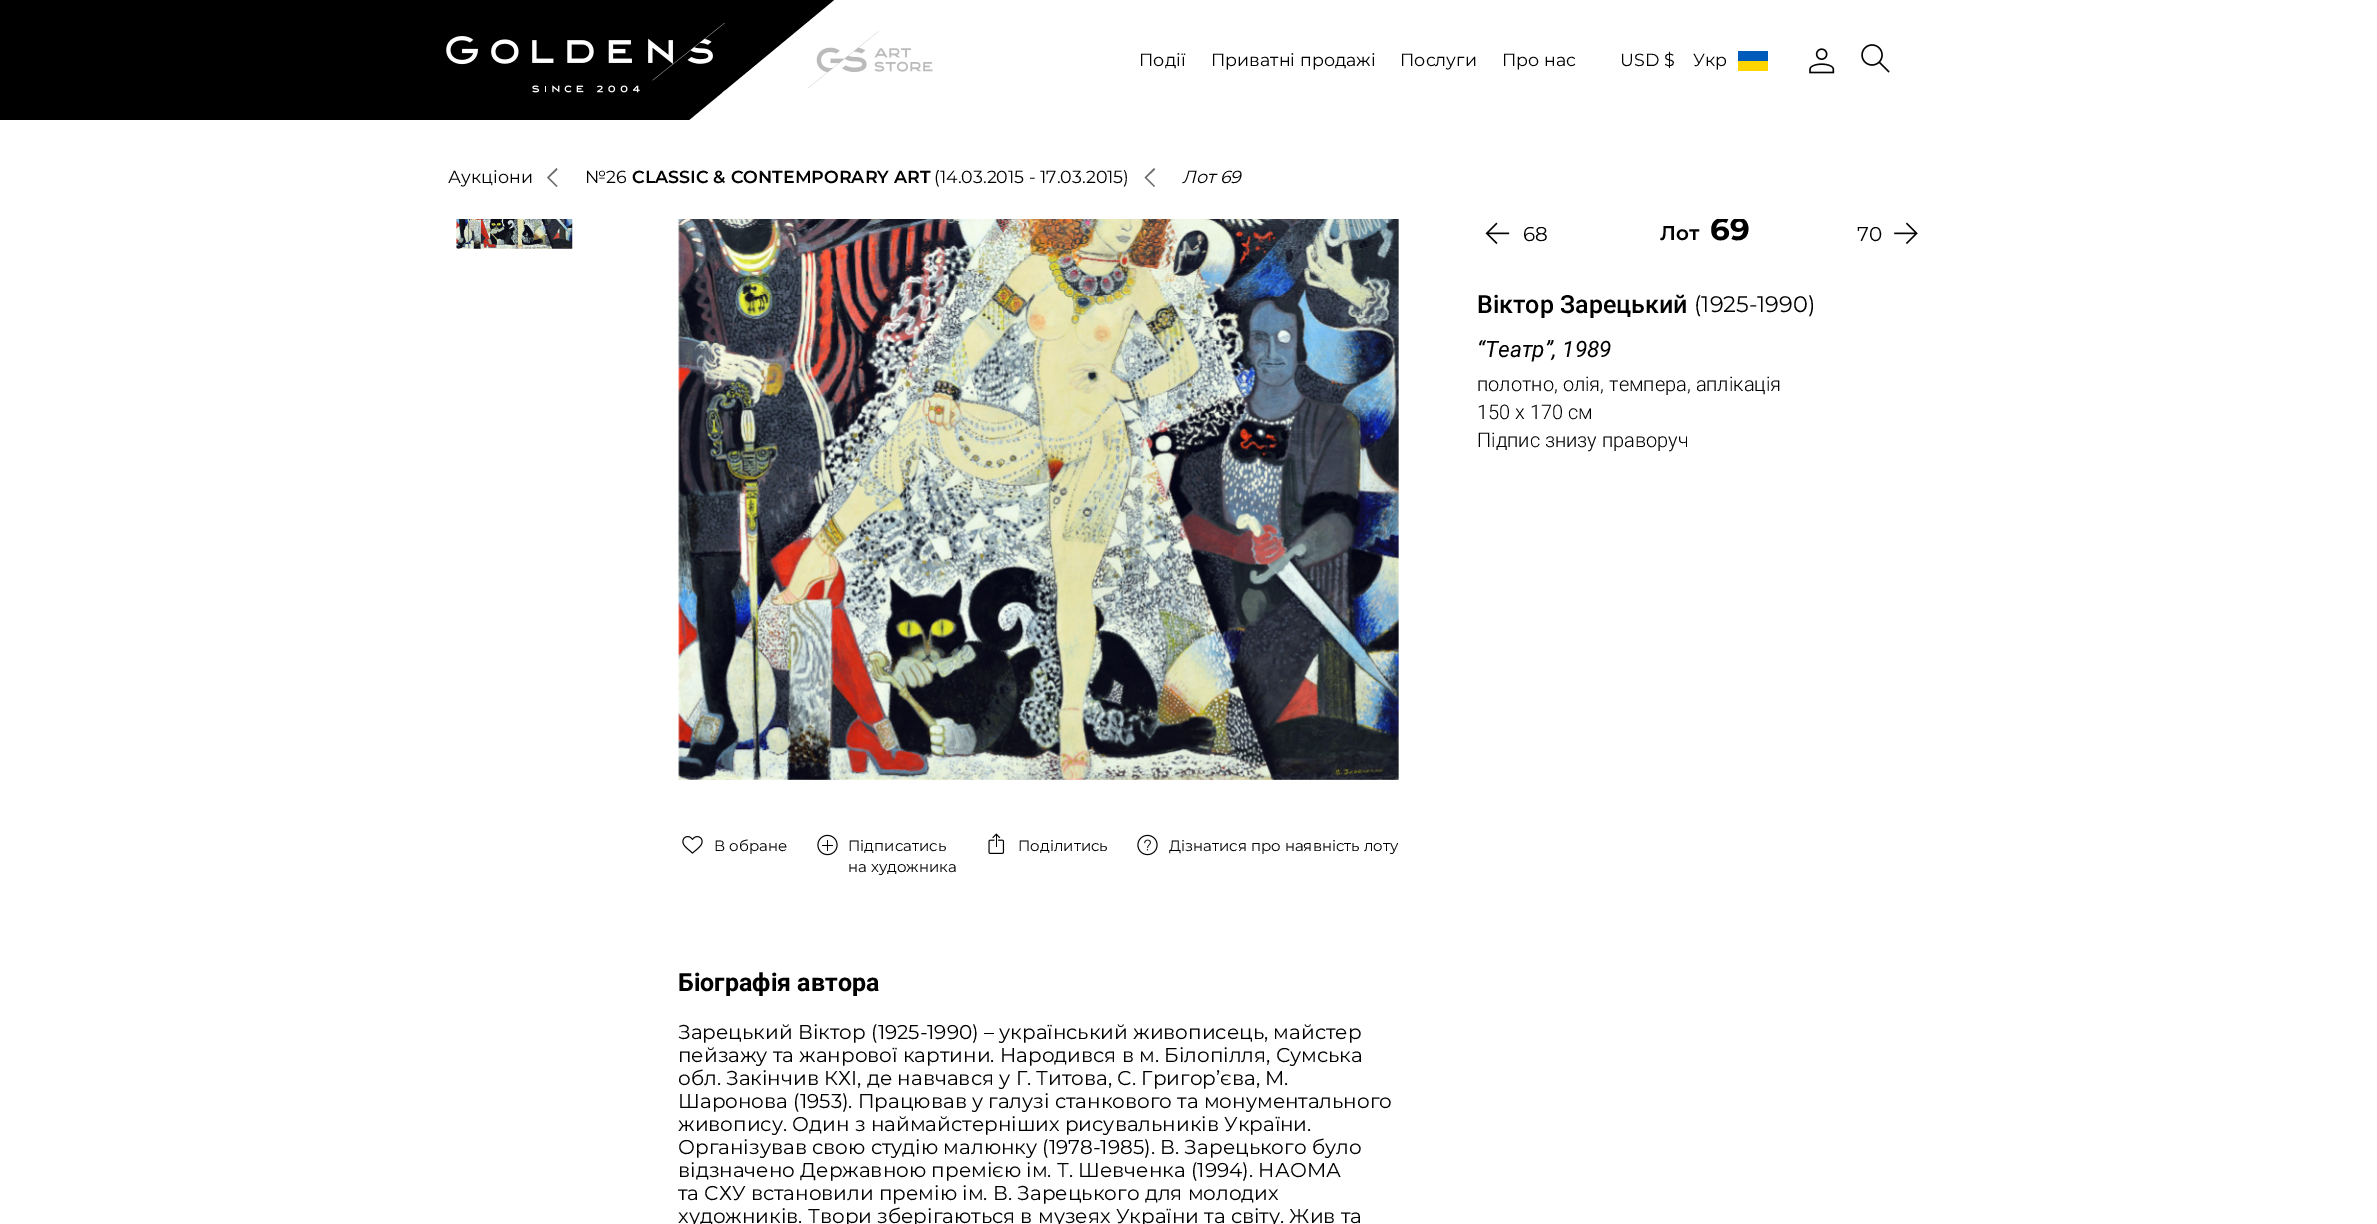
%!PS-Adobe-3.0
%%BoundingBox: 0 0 2377 1224
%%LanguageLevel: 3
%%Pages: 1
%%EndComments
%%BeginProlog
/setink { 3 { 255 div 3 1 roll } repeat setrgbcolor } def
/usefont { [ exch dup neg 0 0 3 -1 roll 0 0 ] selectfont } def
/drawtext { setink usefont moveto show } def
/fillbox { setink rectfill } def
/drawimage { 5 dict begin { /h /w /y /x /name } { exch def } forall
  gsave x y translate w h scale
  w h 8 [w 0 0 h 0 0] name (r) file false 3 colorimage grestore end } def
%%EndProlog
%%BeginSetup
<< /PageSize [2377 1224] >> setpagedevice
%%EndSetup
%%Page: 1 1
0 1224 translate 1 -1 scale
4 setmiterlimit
0 0 2377 1224 255 255 255 fillbox
(69) 1710 240 /Montserrat-Bold 31 0 0 0 drawtext
1717 217 27 2 255 255 255 fillbox
0 0 428 120 0 0 0 fillbox
(assets/img2.rgb) 808 31 125 57 drawimage
428 0 moveto 428 120 lineto 689 120 lineto 834 0 lineto closepath fill
(assets/img1.rgb) 446 23 279 70 drawimage
(Події) 1139 66 /Montserrat-Regular 17.5 0 0 0 drawtext
(Приватні продажі) 1211 66 /Montserrat-Regular 17.5 0 0 0 drawtext
(Послуги) 1400 66 /Montserrat-Regular 17.5 0 0 0 drawtext
(Про нас) 1502 66 /Montserrat-Regular 17.5 0 0 0 drawtext
(USD $) 1620 66 /Montserrat-Regular 17.5 0 0 0 drawtext
(Укр) 1693 66 /Montserrat-Regular 17.5 0 0 0 drawtext
1738 51 30 10 0 91 187 fillbox
1738 61 30 10 255 213 0 fillbox
(assets/img3.rgb) 1809 48 26 26 drawimage
(assets/img4.rgb) 1861 44 29 29 drawimage
(Аукціони) 448 183 /Montserrat-Regular 17.5 0 0 0 drawtext
107 107 107 setink
556.5 187 moveto 547 177.5 lineto 556.5 168 lineto 557.5 169.5 lineto 549 177.5 lineto 557.5 186 lineto closepath fill
(№26) 585 183 /Montserrat-Regular 17.5 0 0 0 drawtext
(CLASSIC & CONTEMPORARY ART) 632 183 /Montserrat-SemiBold 17.5 0 0 0 drawtext
(\(14.03.2015 - 17.03.2015\)) 934 183 /Montserrat-Regular 17.5 0 0 0 drawtext
107 107 107 setink
1154 187 moveto 1144.5 177.5 lineto 1154 168 lineto 1155 169.5 lineto 1146.5 177.5 lineto 1155 186 lineto closepath fill
(Лот 69) 1182 183 /Montserrat-Italic 17.5 0 0 0 drawtext
(assets/img5.rgb) 1485 222 25 23 drawimage
(68) 1523 241 /Montserrat-Regular 20 0 0 0 drawtext
(Лот) 1660 240 /Montserrat-SemiBold 20 0 0 0 drawtext
(70) 1857 241 /Montserrat-Regular 20 0 0 0 drawtext
(assets/img6.rgb) 1894 222 24 22 drawimage
(Вiктор Зарецький) 1477 313 /Roboto-Medium 25 0 0 0 drawtext
(\(1925-1990\)) 1694 312 /Montserrat-Regular 22.5 0 0 0 drawtext
(“Театр”, 1989) 1477 357 /Roboto-Italic 22.5 0 0 0 drawtext
(полотно, олія, темпера, аплікація) 1477 391 /Roboto-Light 20 0 0 0 drawtext
(150 х 170 см) 1477 419 /Roboto-Light 20 0 0 0 drawtext
(Підпис знизу праворуч) 1477 447 /Roboto-Light 20 0 0 0 drawtext
(assets/img7.rgb) 456 219 117 30 drawimage
(assets/img8.rgb) 678 219 721 561 drawimage
(assets/img9.rgb) 682 836 21 18 drawimage
(В обране) 714 851 /Montserrat-Regular 15 0 0 0 drawtext
(assets/img10.rgb) 817 834 21 22 drawimage
(Підписатись) 848 851 /Montserrat-Regular 15 0 0 0 drawtext
(на художника) 848 872 /Montserrat-Regular 15 0 0 0 drawtext
(assets/img11.rgb) 988 833 17 21 drawimage
(Поділитись) 1018 851 /Montserrat-Regular 15 0 0 0 drawtext
(assets/img12.rgb) 1137 834 21 22 drawimage
(Дізнатися про наявність лоту) 1169 851 /Montserrat-Regular 15 0 0 0 drawtext
(Біографія автора) 678 991 /Roboto-Bold 25 0 0 0 drawtext
(Зарецький Віктор \(1925-1990\) – український живописець, майстер) 678 1039 /Montserrat-Regular 20 0 0 0 drawtext
(пейзажу та жанрової картини. Народився в м. Білопілля, Сумська) 678 1062 /Montserrat-Regular 20 0 0 0 drawtext
(обл. Закінчив КХІ, де навчався у Г. Титова, С. Григор’єва, М.) 678 1085 /Montserrat-Regular 20 0 0 0 drawtext
(Шаронова \(1953\). Працював у галузі станкового та монументального) 678 1108 /Montserrat-Regular 20 0 0 0 drawtext
(живопису. Один з наймайстерніших рисувальників України.) 678 1131 /Montserrat-Regular 20 0 0 0 drawtext
(Організував свою студію малюнку \(1978-1985\). В. Зарецького було) 678 1154 /Montserrat-Regular 20 0 0 0 drawtext
(відзначено Державною премією ім. Т. Шевченка \(1994\). НАОМА) 678 1177 /Montserrat-Regular 20 0 0 0 drawtext
(та СХУ встановили премію ім. В. Зарецького для молодих) 678 1200 /Montserrat-Regular 20 0 0 0 drawtext
(художників. Твори зберігаються в музеях України та світу. Жив та) 678 1223 /Montserrat-Regular 20 0 0 0 drawtext
showpage
%%EOF
